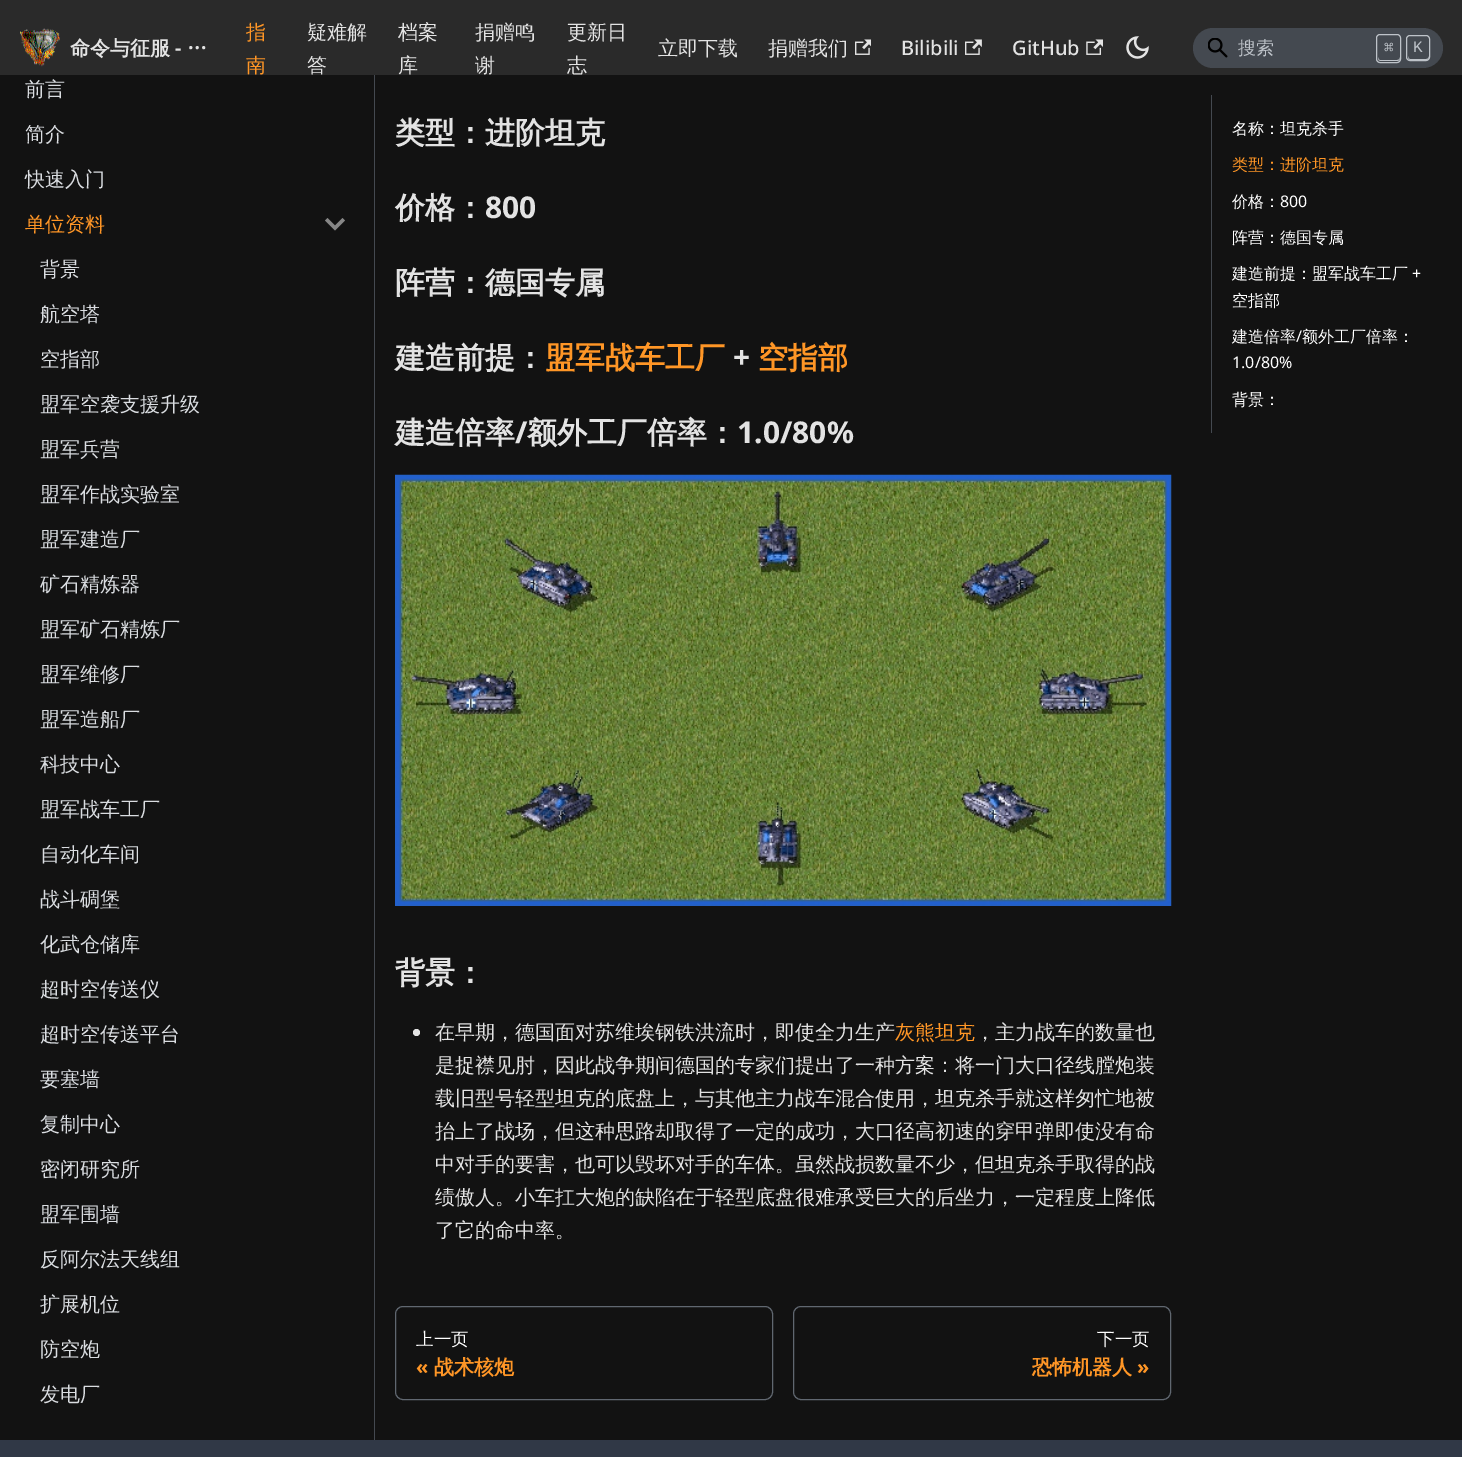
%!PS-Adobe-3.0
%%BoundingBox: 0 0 1462 1457
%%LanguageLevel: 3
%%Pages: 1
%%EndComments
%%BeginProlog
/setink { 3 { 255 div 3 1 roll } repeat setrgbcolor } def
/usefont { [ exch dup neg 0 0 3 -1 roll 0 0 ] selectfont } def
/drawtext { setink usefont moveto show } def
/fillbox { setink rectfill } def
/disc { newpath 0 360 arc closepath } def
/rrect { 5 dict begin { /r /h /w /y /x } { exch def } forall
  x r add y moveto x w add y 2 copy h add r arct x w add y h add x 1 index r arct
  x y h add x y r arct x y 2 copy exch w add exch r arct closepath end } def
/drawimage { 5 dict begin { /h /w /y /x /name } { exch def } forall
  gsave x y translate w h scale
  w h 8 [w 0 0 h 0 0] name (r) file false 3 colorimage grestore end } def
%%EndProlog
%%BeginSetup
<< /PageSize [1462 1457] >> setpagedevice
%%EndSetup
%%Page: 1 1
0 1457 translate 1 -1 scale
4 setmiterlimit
0 0 1462 1457 18 18 18 fillbox
0 0 1462 75 42 42 42 fillbox
(assets/img1.rgb) 20 28 40 39 drawimage
(命令与征服) 70 55 /WenQuanYiZenHei-Bold 20 227 227 227 drawtext
(-) 175 55 /NotoSans-Bold 20 227 227 227 drawtext
(…) 187 55 /WenQuanYiZenHei-Bold 20 227 227 227 drawtext
(指) 246 39 /WenQuanYiZenHei-Medium 20 255 150 38 drawtext
(南) 246 72 /WenQuanYiZenHei-Medium 20 255 150 38 drawtext
(疑难解) 307 39 /WenQuanYiZenHei-Medium 20 227 227 227 drawtext
(答) 307 72 /WenQuanYiZenHei-Medium 20 227 227 227 drawtext
(档案) 398 39 /WenQuanYiZenHei-Medium 20 227 227 227 drawtext
(库) 398 72 /WenQuanYiZenHei-Medium 20 227 227 227 drawtext
(捐赠鸣) 475 39 /WenQuanYiZenHei-Medium 20 227 227 227 drawtext
(谢) 475 72 /WenQuanYiZenHei-Medium 20 227 227 227 drawtext
(更新日) 567 39 /WenQuanYiZenHei-Medium 20 227 227 227 drawtext
(志) 567 72 /WenQuanYiZenHei-Medium 20 227 227 227 drawtext
(立即下载) 658 55 /WenQuanYiZenHei-Medium 20 227 227 227 drawtext
(捐赠我们) 768 55 /WenQuanYiZenHei-Medium 20 227 227 227 drawtext
(assets/img2.rgb) 855 39 16 16 drawimage
(Bilibili) 901 55 /NotoSans-Medium 20 227 227 227 drawtext
(assets/img3.rgb) 965 39 17 16 drawimage
(GitHub) 1012 55 /NotoSans-Medium 20 227 227 227 drawtext
(assets/img4.rgb) 1086 39 17 16 drawimage
(assets/img5.rgb) 1126 36 23 23 drawimage
68 73 80 setink
1193 28 250 40 20 rrect fill
(assets/img6.rgb) 1208 38 20 20 drawimage
(搜索) 1238 54 /WenQuanYiZenHei-Medium 18 190 195 201 drawtext
1378 57 moveto 1378 61 1379.5 61 1383.5 61 curveto 1394.5 61 lineto 1398.5 61 1400 61 1400 57 curveto 1400 59 1399 60 1397 60 curveto 1380 60 lineto 1379 60 1378 59 1378 57 curveto closepath fill
1376.5 34.5 24 28 3.5 rrect stroke
(⌘) 1384 53 /DejaVuSansMono-Regular 16 190 195 201 drawtext
1408 56 moveto 1408 60 1409.5 60 1413 60 curveto 1424 60 lineto 1427.5 60 1429 60 1429 56 curveto 1429 58 1428 59 1426 59 curveto 1410 59 lineto 1409 59 1408 58 1408 56 curveto closepath fill
1406.5 35.5 23 25 3.5 rrect stroke
(K) 1413 52 /LiberationMono-Regular 16 190 195 201 drawtext
374 75 1 1365 68 73 80 fillbox
(前言) 25 96 /WenQuanYiZenHei-Medium 20 218 221 225 drawtext
(简介) 25 141 /WenQuanYiZenHei-Medium 20 218 221 225 drawtext
(快速入门) 25 186 /WenQuanYiZenHei-Medium 20 218 221 225 drawtext
(单位资料) 25 231 /WenQuanYiZenHei-Medium 20 255 150 38 drawtext
135 135 135 setink
342.5 218 moveto 335 225.5 lineto 327.5 218 lineto 325 220.5 lineto 335 230.5 lineto 345 220.5 lineto closepath fill
(背景) 40 276 /WenQuanYiZenHei-Medium 20 218 221 225 drawtext
(航空塔) 40 321 /WenQuanYiZenHei-Medium 20 218 221 225 drawtext
(空指部) 40 366 /WenQuanYiZenHei-Medium 20 218 221 225 drawtext
(盟军空袭支援升级) 40 411 /WenQuanYiZenHei-Medium 20 218 221 225 drawtext
(盟军兵营) 40 456 /WenQuanYiZenHei-Medium 20 218 221 225 drawtext
(盟军作战实验室) 40 501 /WenQuanYiZenHei-Medium 20 218 221 225 drawtext
(盟军建造厂) 40 546 /WenQuanYiZenHei-Medium 20 218 221 225 drawtext
(矿石精炼器) 40 591 /WenQuanYiZenHei-Medium 20 218 221 225 drawtext
(盟军矿石精炼厂) 40 636 /WenQuanYiZenHei-Medium 20 218 221 225 drawtext
(盟军维修厂) 40 681 /WenQuanYiZenHei-Medium 20 218 221 225 drawtext
(盟军造船厂) 40 726 /WenQuanYiZenHei-Medium 20 218 221 225 drawtext
(科技中心) 40 771 /WenQuanYiZenHei-Medium 20 218 221 225 drawtext
(盟军战车工厂) 40 816 /WenQuanYiZenHei-Medium 20 218 221 225 drawtext
(自动化车间) 40 861 /WenQuanYiZenHei-Medium 20 218 221 225 drawtext
(战斗碉堡) 40 906 /WenQuanYiZenHei-Medium 20 218 221 225 drawtext
(化武仓储库) 40 951 /WenQuanYiZenHei-Medium 20 218 221 225 drawtext
(超时空传送仪) 40 996 /WenQuanYiZenHei-Medium 20 218 221 225 drawtext
(超时空传送平台) 40 1041 /WenQuanYiZenHei-Medium 20 218 221 225 drawtext
(要塞墙) 40 1086 /WenQuanYiZenHei-Medium 20 218 221 225 drawtext
(复制中心) 40 1131 /WenQuanYiZenHei-Medium 20 218 221 225 drawtext
(密闭研究所) 40 1176 /WenQuanYiZenHei-Medium 20 218 221 225 drawtext
(盟军围墙) 40 1221 /WenQuanYiZenHei-Medium 20 218 221 225 drawtext
(反阿尔法天线组) 40 1266 /WenQuanYiZenHei-Medium 20 218 221 225 drawtext
(扩展机位) 40 1311 /WenQuanYiZenHei-Medium 20 218 221 225 drawtext
(防空炮) 40 1356 /WenQuanYiZenHei-Medium 20 218 221 225 drawtext
(发电厂) 40 1401 /WenQuanYiZenHei-Medium 20 218 221 225 drawtext
(类型：进阶坦克) 395 143 /WenQuanYiZenHei-Bold 30 227 227 227 drawtext
(价格：) 395 218 /WenQuanYiZenHei-Bold 30 227 227 227 drawtext
(800) 485 218 /NotoSans-Bold 30 227 227 227 drawtext
(阵营：德国专属) 395 293 /WenQuanYiZenHei-Bold 30 227 227 227 drawtext
(建造前提：) 395 368 /WenQuanYiZenHei-Bold 30 227 227 227 drawtext
(盟军战车工厂) 545 368 /WenQuanYiZenHei-Bold 30 255 150 38 drawtext
(+) 733 368 /NotoSans-Bold 30 227 227 227 drawtext
(空指部) 758 368 /WenQuanYiZenHei-Bold 30 255 150 38 drawtext
(建造倍率) 395 443 /WenQuanYiZenHei-Bold 30 227 227 227 drawtext
(/) 515 443 /NotoSans-Bold 30 227 227 227 drawtext
(额外工厂倍率：) 527 443 /WenQuanYiZenHei-Bold 30 227 227 227 drawtext
(1.0/80%) 737 443 /NotoSans-Bold 30 227 227 227 drawtext
(assets/img7.rgb) 395 474 777 432 drawimage
(背景：) 395 983 /WenQuanYiZenHei-Bold 30 227 227 227 drawtext
416.5 1032.5 3.5 disc fill
(在早期，德国面对苏维埃钢铁洪流时，即使全力生产) 435 1039 /WenQuanYiZenHei-Medium 20 227 227 227 drawtext
(灰熊坦克) 895 1039 /WenQuanYiZenHei-Medium 20 255 150 38 drawtext
(，主力战车的数量也) 975 1039 /WenQuanYiZenHei-Medium 20 227 227 227 drawtext
(是捉襟见肘，因此战争期间德国的专家们提出了一种方案：将一门大口径线膛炮装) 435 1072 /WenQuanYiZenHei-Medium 20 227 227 227 drawtext
(载旧型号轻型坦克的底盘上，与其他主力战车混合使用，坦克杀手就这样匆忙地被) 435 1105 /WenQuanYiZenHei-Medium 20 227 227 227 drawtext
(抬上了战场，但这种思路却取得了一定的成功，大口径高初速的穿甲弹即使没有命) 435 1138 /WenQuanYiZenHei-Medium 20 227 227 227 drawtext
(中对手的要害，也可以毁坏对手的车体。虽然战损数量不少，但坦克杀手取得的战) 435 1171 /WenQuanYiZenHei-Medium 20 227 227 227 drawtext
(绩傲人。小车扛大炮的缺陷在于轻型底盘很难承受巨大的后坐力，一定程度上降低) 435 1204 /WenQuanYiZenHei-Medium 20 227 227 227 drawtext
(了它的命中率。) 435 1237 /WenQuanYiZenHei-Medium 20 227 227 227 drawtext
96 103 112 setink
395.5 1306.5 377 93 7.5 rrect stroke
(上一页) 416 1345 /WenQuanYiZenHei-Medium 17.5 255 255 255 drawtext
(«) 416 1374 /NotoSans-Bold 20 255 150 38 drawtext
(战术核炮) 434 1374 /WenQuanYiZenHei-Bold 20 255 150 38 drawtext
96 103 112 setink
793.5 1306.5 377 93 7.5 rrect stroke
(下一页) 1097 1345 /WenQuanYiZenHei-Medium 17.5 255 255 255 drawtext
(恐怖机器人) 1032 1374 /WenQuanYiZenHei-Bold 20 255 150 38 drawtext
(») 1137 1374 /NotoSans-Bold 20 255 150 38 drawtext
1211 95 1 338 68 73 80 fillbox
(名称：坦克杀手) 1232 134 /WenQuanYiZenHei-Medium 16 255 255 255 drawtext
(类型：进阶坦克) 1232 170 /WenQuanYiZenHei-Medium 16 255 150 38 drawtext
(价格：) 1232 207 /WenQuanYiZenHei-Medium 16 255 255 255 drawtext
(800) 1280 207 /NotoSans-Regular 16 255 255 255 drawtext
(阵营：德国专属) 1232 243 /WenQuanYiZenHei-Medium 16 255 255 255 drawtext
(建造前提：盟军战车工厂) 1232 279 /WenQuanYiZenHei-Medium 16 255 255 255 drawtext
(+) 1412 279 /NotoSans-Regular 16 255 255 255 drawtext
(空指部) 1232 306 /WenQuanYiZenHei-Medium 16 255 255 255 drawtext
(建造倍率) 1232 342 /WenQuanYiZenHei-Medium 16 255 255 255 drawtext
(/) 1296 342 /NotoSans-Regular 16 255 255 255 drawtext
(额外工厂倍率：) 1302 342 /WenQuanYiZenHei-Medium 16 255 255 255 drawtext
(1.0/80%) 1232 368 /NotoSans-Regular 16 255 255 255 drawtext
(背景：) 1232 405 /WenQuanYiZenHei-Medium 16 255 255 255 drawtext
0 1440 1462 17 48 56 70 fillbox
showpage
%%EOF
